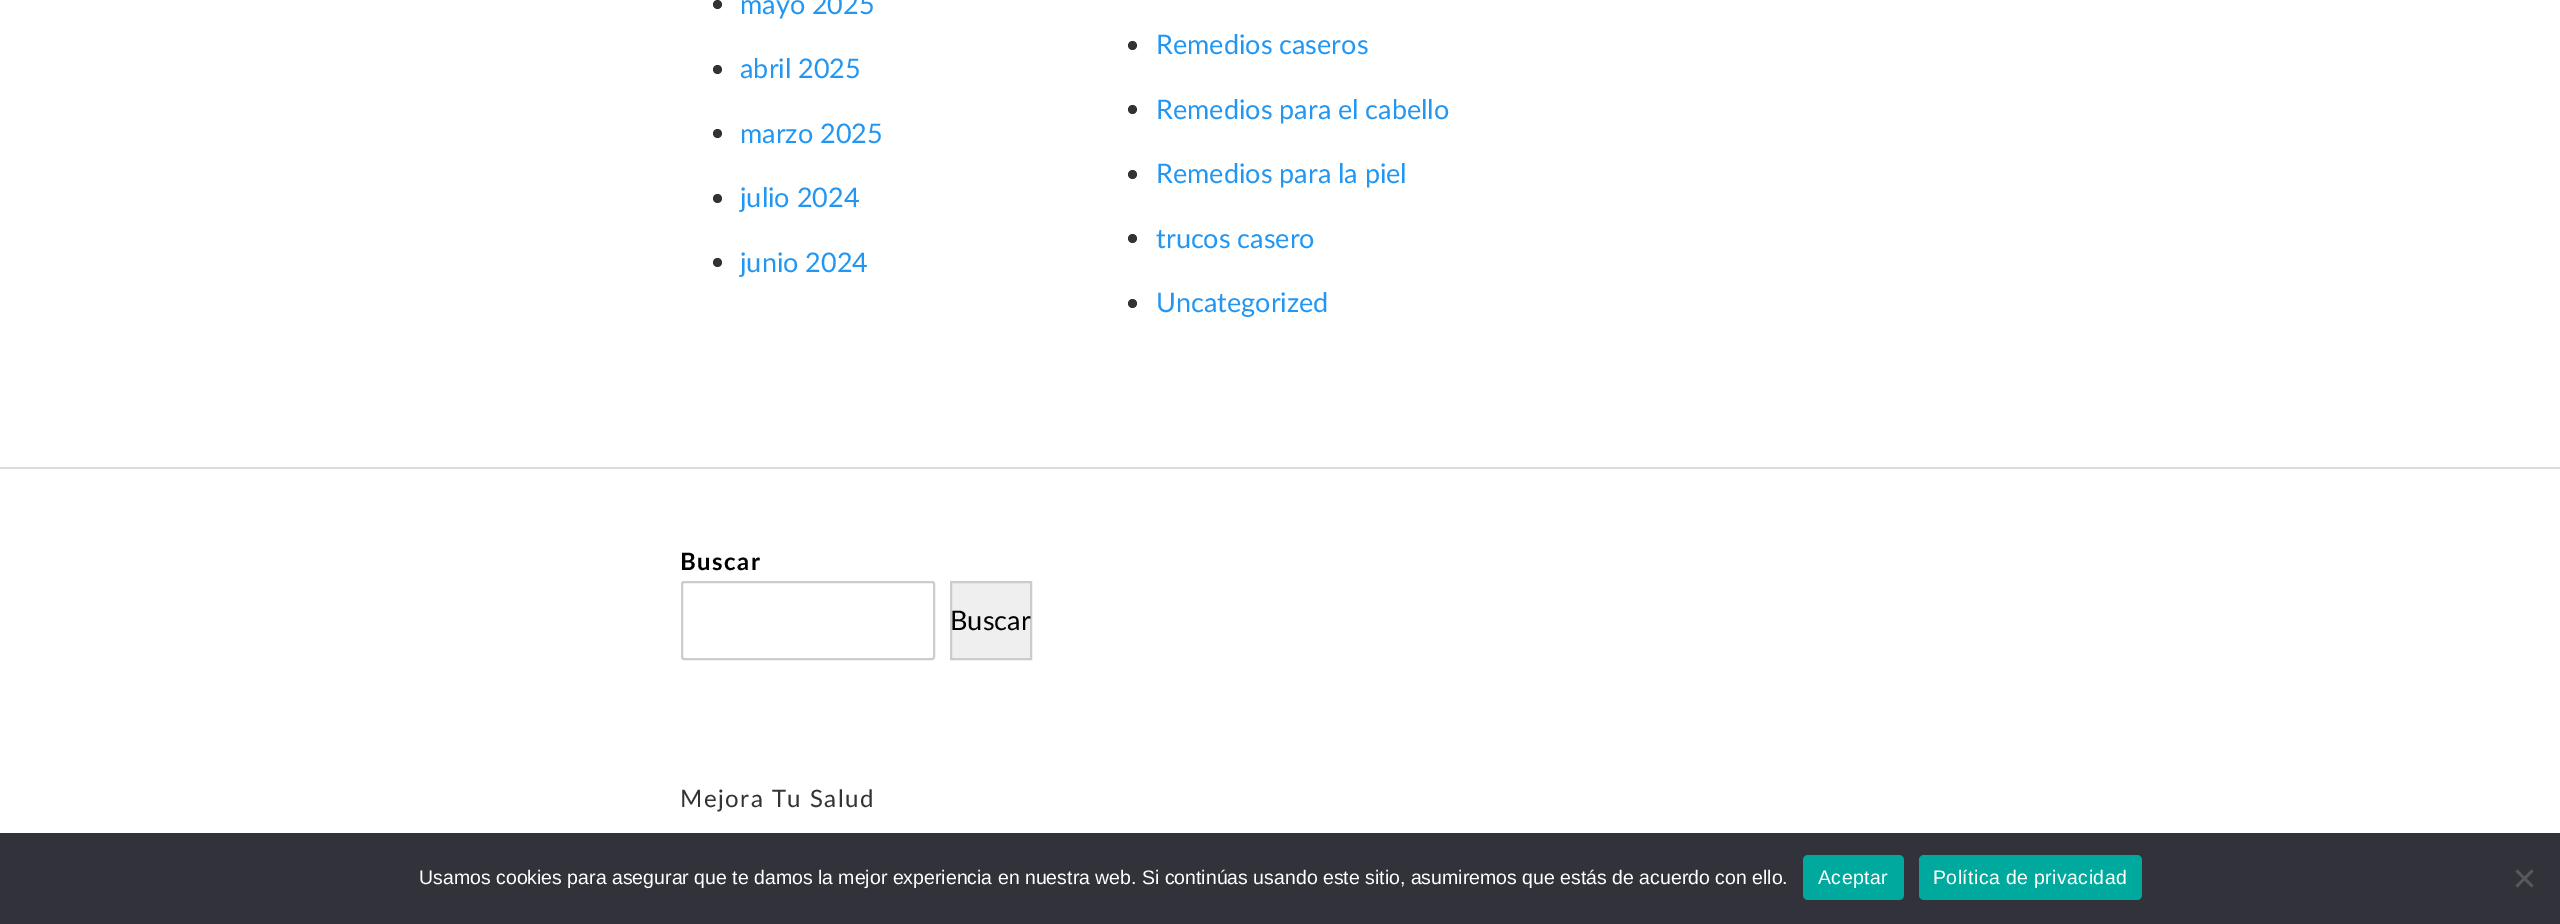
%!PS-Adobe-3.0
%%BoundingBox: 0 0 2560 924
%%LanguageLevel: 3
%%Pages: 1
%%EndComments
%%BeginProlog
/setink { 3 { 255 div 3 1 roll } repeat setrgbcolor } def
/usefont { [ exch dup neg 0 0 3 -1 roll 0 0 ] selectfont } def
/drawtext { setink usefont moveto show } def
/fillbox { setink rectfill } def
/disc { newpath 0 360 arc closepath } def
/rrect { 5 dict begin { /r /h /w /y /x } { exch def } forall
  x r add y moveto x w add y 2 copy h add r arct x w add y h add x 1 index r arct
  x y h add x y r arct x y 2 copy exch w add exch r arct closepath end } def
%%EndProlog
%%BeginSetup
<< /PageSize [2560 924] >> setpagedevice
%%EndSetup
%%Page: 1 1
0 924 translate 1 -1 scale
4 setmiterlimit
0 0 2560 924 255 255 255 fillbox
51 51 51 setink
717.5 4.5 4.5 disc fill
(mayo 2025) 740 14 /Lato-Regular 27 33 150 243 drawtext
51 51 51 setink
717.5 69.5 4.5 disc fill
(abril 2025) 740 78 /Lato-Regular 27 33 150 243 drawtext
51 51 51 setink
717.5 133.5 4.5 disc fill
(marzo 2025) 740 143 /Lato-Regular 27 33 150 243 drawtext
51 51 51 setink
717.5 198.5 4.5 disc fill
(julio 2024) 740 207 /Lato-Regular 27 33 150 243 drawtext
51 51 51 setink
717.5 262.5 4.5 disc fill
(junio 2024) 740 272 /Lato-Regular 27 33 150 243 drawtext
51 51 51 setink
1132.5 45.5 4.5 disc fill
(Remedios caseros) 1156 54 /Lato-Regular 27 33 150 243 drawtext
51 51 51 setink
1132.5 109.5 4.5 disc fill
(Remedios para el cabello) 1156 119 /Lato-Regular 27 33 150 243 drawtext
51 51 51 setink
1132.5 174.5 4.5 disc fill
(Remedios para la piel) 1156 183 /Lato-Regular 27 33 150 243 drawtext
51 51 51 setink
1132.5 238.5 4.5 disc fill
(trucos casero) 1156 248 /Lato-Regular 27 33 150 243 drawtext
51 51 51 setink
1132.5 303.5 4.5 disc fill
(Uncategorized) 1156 312 /Lato-Regular 27 33 150 243 drawtext
0 467 2560 2 219 219 219 fillbox
/Lato-Bold 24 usefont
0 0 0 setink
680 570 moveto 1.5 0 (Buscar) ashow
204 204 204 setink
2 setlinewidth
682 582 252 77 2 rrect stroke
239 239 239 setink
951 582 moveto 1031 582 lineto 1031 659 lineto 951 659 lineto closepath gsave fill grestore
204 204 204 setink
stroke
(Buscar) 950 630 /Lato-Regular 27 0 0 0 drawtext
/Lato-Regular 24 usefont
51 51 51 setink
680 807 moveto 1.5 0 (Mejora Tu Salud) ashow
0 833 2560 91 50 50 58 fillbox
(Usamos cookies para asegurar que te damos la mejor experiencia en nuestra web. Si continúas usando este sitio, asumiremos que estás de acuerdo con ello.) 419 884 /LiberationSans-Regular 19.5 255 255 255 drawtext
0 169 157 setink
1803 855 101 45 5 rrect fill
255 255 255 setink
1818 884 moveto 0.4 0 (Aceptar) ashow
0 169 157 setink
1919 855 223 45 5 rrect fill
255 255 255 setink
1933 884 moveto 0.4 0 (Política de privacidad) ashow
89 89 93 setink
2531.5 869.5 moveto 2533.5 871.5 lineto 2517.5 887.5 lineto 2515.5 885.5 lineto closepath fill
2515.5 871.5 moveto 2517.5 869.5 lineto 2533.5 885.5 lineto 2531.5 887.5 lineto closepath fill
showpage
%%EOF
